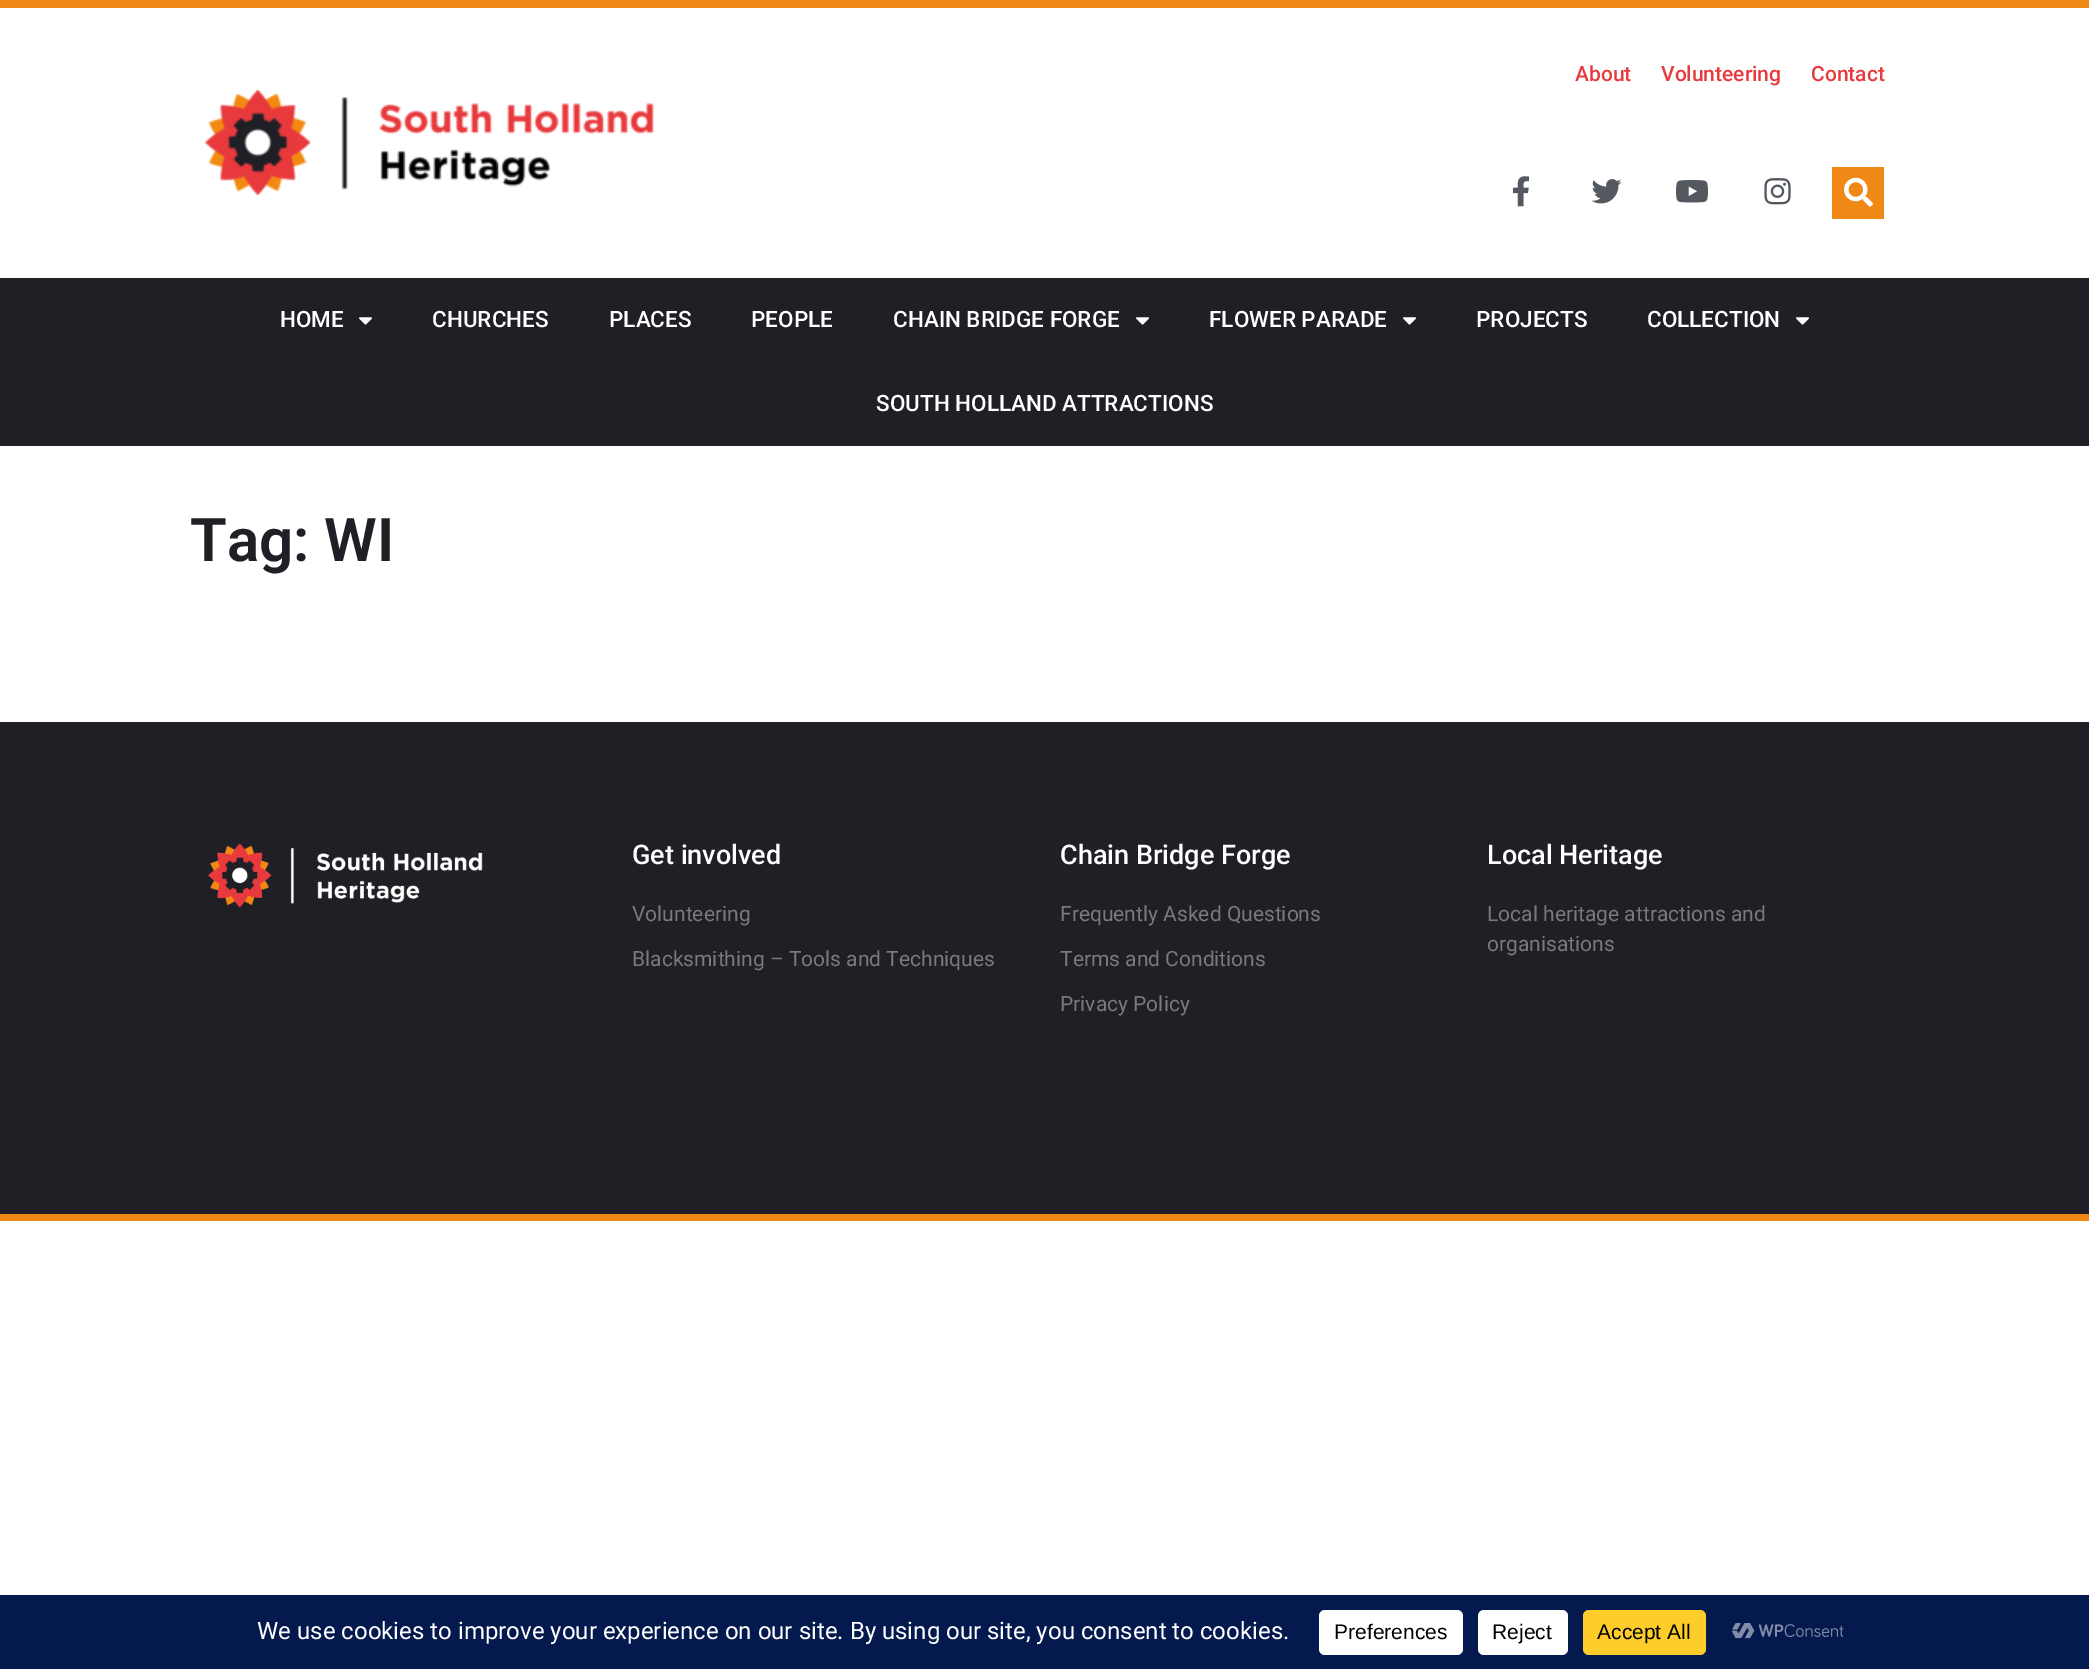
%!PS-Adobe-3.0
%%BoundingBox: 0 0 2089 1669
%%LanguageLevel: 3
%%Pages: 1
%%EndComments
%%BeginProlog
/setink { 3 { 255 div 3 1 roll } repeat setrgbcolor } def
/usefont { [ exch dup neg 0 0 3 -1 roll 0 0 ] selectfont } def
/drawtext { setink usefont moveto show } def
/fillbox { setink rectfill } def
/rrect { 5 dict begin { /r /h /w /y /x } { exch def } forall
  x r add y moveto x w add y 2 copy h add r arct x w add y h add x 1 index r arct
  x y h add x y r arct x y 2 copy exch w add exch r arct closepath end } def
/drawimage { 5 dict begin { /h /w /y /x /name } { exch def } forall
  gsave x y translate w h scale
  w h 8 [w 0 0 h 0 0] name (r) file false 3 colorimage grestore end } def
%%EndProlog
%%BeginSetup
<< /PageSize [2089 1669] >> setpagedevice
%%EndSetup
%%Page: 1 1
0 1669 translate 1 -1 scale
4 setmiterlimit
0 0 2089 1669 255 255 255 fillbox
0 0 2089 8 240 136 22 fillbox
(About) 1575 81 /Roboto-Medium 21 230 58 60 drawtext
(Volunteering) 1661 81 /Roboto-Medium 21 230 58 60 drawtext
(Contact) 1811 81 /Roboto-Medium 21 230 58 60 drawtext
(assets/img1.rgb) 1512 176 18 31 drawimage
(assets/img2.rgb) 1591 179 31 25 drawimage
(assets/img3.rgb) 1676 180 32 23 drawimage
(assets/img4.rgb) 1764 178 27 27 drawimage
1832 167 52 52 240 136 22 fillbox
(assets/img5.rgb) 1844 177 29 30 drawimage
(assets/img6.rgb) 205 90 450 105 drawimage
0 278 2089 168 31 31 37 fillbox
(HOME) 280 327 /Roboto-Medium 22.5 255 255 255 drawtext
(assets/img7.rgb) 359 317 13 8 drawimage
(CHURCHES) 432 327 /Roboto-Medium 22.5 255 255 255 drawtext
(PLACES) 609 327 /Roboto-Medium 22.5 255 255 255 drawtext
(PEOPLE) 751 327 /Roboto-Medium 22.5 255 255 255 drawtext
(CHAIN BRIDGE FORGE) 893 327 /Roboto-Medium 22.5 255 255 255 drawtext
(assets/img7.rgb) 1136 317 13 8 drawimage
(FLOWER PARADE) 1209 327 /Roboto-Medium 22.5 255 255 255 drawtext
(assets/img7.rgb) 1403 317 13 8 drawimage
(PROJECTS) 1476 327 /Roboto-Medium 22.5 255 255 255 drawtext
(COLLECTION) 1647 327 /Roboto-Medium 22.5 255 255 255 drawtext
(assets/img7.rgb) 1796 317 13 8 drawimage
(SOUTH HOLLAND ATTRACTIONS) 876 411 /Roboto-Medium 22.5 255 255 255 drawtext
(Tag: WI) 190 561 /Roboto-SemiBold 60 31 31 37 drawtext
0 722 2089 492 31 31 37 fillbox
(assets/img8.rgb) 207 843 276 65 drawimage
(Get involved) 632 864 /Roboto-Medium 27 255 255 255 drawtext
(Volunteering) 632 921 /Roboto-Regular 21 122 122 122 drawtext
(Blacksmithing – Tools and Techniques) 632 966 /Roboto-Regular 21 122 122 122 drawtext
(Chain Bridge Forge) 1060 864 /Roboto-Medium 27 255 255 255 drawtext
(Frequently Asked Questions) 1060 921 /Roboto-Regular 21 122 122 122 drawtext
(Terms and Conditions) 1060 966 /Roboto-Regular 21 122 122 122 drawtext
(Privacy Policy) 1060 1011 /Roboto-Regular 21 122 122 122 drawtext
(Local Heritage) 1487 864 /Roboto-Medium 27 255 255 255 drawtext
(Local heritage attractions and) 1487 921 /Roboto-Regular 21 122 122 122 drawtext
(organisations) 1487 951 /Roboto-Regular 21 122 122 122 drawtext
0 1214 2089 7 240 136 22 fillbox
0 1595 2089 74 4 25 78 fillbox
(We use cookies to improve your experience on our site. By using our site, you consent to cookies.) 257 1639 /Roboto-Regular 24 255 255 255 drawtext
1319 1610 144 45 6 rrect fill
(Preferences) 1334 1639 /LiberationSans-Regular 21 0 0 0 drawtext
255 255 255 setink
1478 1610 90 45 6 rrect fill
(Reject) 1492 1639 /LiberationSans-Regular 21 0 0 0 drawtext
255 205 42 setink
1583 1610 123 45 6 rrect fill
(Accept All) 1597 1639 /LiberationSans-Regular 21 0 0 0 drawtext
(assets/img9.rgb) 1732 1623 112 16 drawimage
showpage
%%EOF
